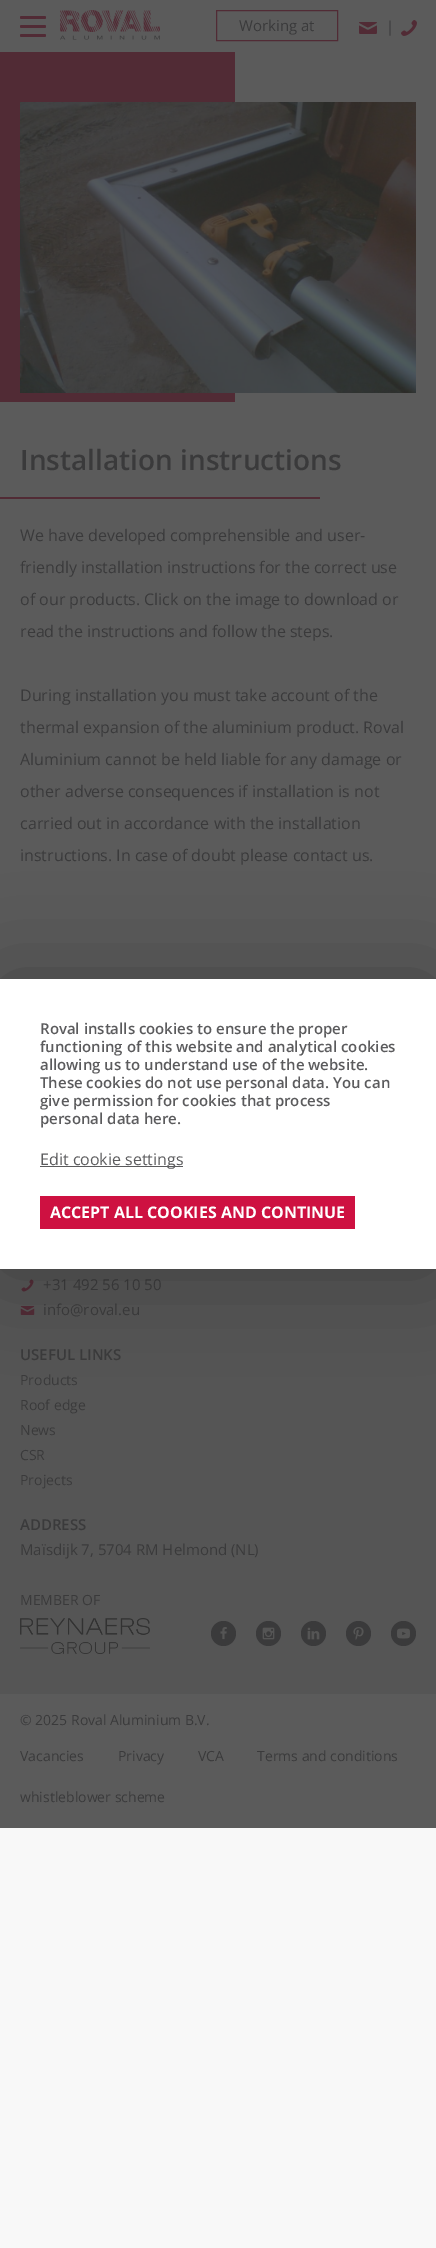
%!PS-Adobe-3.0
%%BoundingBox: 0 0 436 2248
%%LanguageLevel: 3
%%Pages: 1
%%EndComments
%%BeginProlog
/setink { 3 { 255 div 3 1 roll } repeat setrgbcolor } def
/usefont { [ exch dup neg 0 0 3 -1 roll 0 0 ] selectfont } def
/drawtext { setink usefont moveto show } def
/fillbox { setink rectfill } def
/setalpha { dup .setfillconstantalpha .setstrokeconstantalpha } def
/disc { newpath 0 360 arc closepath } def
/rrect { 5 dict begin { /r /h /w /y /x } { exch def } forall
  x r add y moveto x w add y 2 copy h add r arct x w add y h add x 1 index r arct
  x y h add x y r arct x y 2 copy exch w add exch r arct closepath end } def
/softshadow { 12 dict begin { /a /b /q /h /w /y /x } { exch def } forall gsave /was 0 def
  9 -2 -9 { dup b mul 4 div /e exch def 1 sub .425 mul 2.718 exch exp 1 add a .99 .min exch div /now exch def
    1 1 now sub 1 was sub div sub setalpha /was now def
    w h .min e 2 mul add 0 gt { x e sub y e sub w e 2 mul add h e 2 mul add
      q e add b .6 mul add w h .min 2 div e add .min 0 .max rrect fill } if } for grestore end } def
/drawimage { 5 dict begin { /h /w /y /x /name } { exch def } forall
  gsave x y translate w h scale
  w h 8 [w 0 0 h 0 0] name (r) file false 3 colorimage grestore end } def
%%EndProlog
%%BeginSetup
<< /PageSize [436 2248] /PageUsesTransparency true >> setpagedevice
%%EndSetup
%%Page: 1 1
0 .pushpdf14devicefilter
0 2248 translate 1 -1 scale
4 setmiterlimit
0 0 436 2248 248 248 248 fillbox
0 0 436 1828 91 91 91 fillbox
81 43 53 setink
20 16 26 3 1.5 rrect fill
20 25 26 3 1.5 rrect fill
20 34 26 3 1.5 rrect fill
(assets/img1.rgb) 60 10 100 30 drawimage
216.5 10.5 121 30 rectstroke
(Working at) 239 31 /OpenSans-Regular 15 58 58 59 drawtext
(assets/img2.rgb) 359 22 18 12 drawimage
(|) 386 32 /OpenSans-Regular 15 58 58 59 drawtext
(assets/img3.rgb) 401 20 16 16 drawimage
0 52 235 350 81 43 53 fillbox
(assets/img4.rgb) 20 102 396 291 drawimage
(Installation instructions) 20 470 /OpenSans-SemiBold 28 58 58 59 drawtext
0 497 320 2 81 43 53 fillbox
(We have developed comprehensible and user-) 20 541 /OpenSans-Regular 16 58 58 59 drawtext
(friendly installation instructions for the correct use) 20 573 /OpenSans-Regular 16 58 58 59 drawtext
(of our products. Click on the image to download or) 20 605 /OpenSans-Regular 16 58 58 59 drawtext
(read the instructions and follow the steps.) 20 637 /OpenSans-Regular 16 58 58 59 drawtext
(During installation you must take account of the) 20 701 /OpenSans-Regular 16 58 58 59 drawtext
(thermal expansion of the aluminium product. Roval) 20 733 /OpenSans-Regular 16 58 58 59 drawtext
(Aluminium cannot be held liable for any damage or) 20 765 /OpenSans-Regular 16 58 58 59 drawtext
(other adverse consequences if installation is not) 20 797 /OpenSans-Regular 16 58 58 59 drawtext
(carried out in accordance with the installation) 20 829 /OpenSans-Regular 16 58 58 59 drawtext
(instructions. In case of doubt please contact us.) 20 861 /OpenSans-Regular 16 58 58 59 drawtext
0 1269 436 425 85 85 85 fillbox
(assets/img5.rgb) 21 1279 13 13 drawimage
(+31 492 56 10 50) 43 1290 /OpenSans-Regular 15 58 58 59 drawtext
(assets/img6.rgb) 20 1306 15 9 drawimage
(info@roval.eu) 43 1315 /OpenSans-Regular 15 58 58 59 drawtext
(USEFUL LINKS) 20 1360 /OpenSans-SemiBold 15 58 58 59 drawtext
(Products) 20 1385 /OpenSans-Regular 14 58 58 59 drawtext
(Roof edge) 20 1410 /OpenSans-Regular 14 58 58 59 drawtext
(News) 20 1435 /OpenSans-Regular 14 58 58 59 drawtext
(CSR) 20 1460 /OpenSans-Regular 14 58 58 59 drawtext
(Projects) 20 1485 /OpenSans-Regular 14 58 58 59 drawtext
(ADDRESS) 20 1530 /OpenSans-SemiBold 15 58 58 59 drawtext
(Maïsdijk 7, 5704 RM Helmond \(NL\)) 20 1555 /OpenSans-Regular 15 58 58 59 drawtext
(MEMBER OF) 20 1605 /OpenSans-Regular 14 58 58 59 drawtext
(assets/img7.rgb) 20 1618 130 36 drawimage
223.5 1633.5 12.5 disc fill
(assets/img8.rgb) 220 1627 7 13 drawimage
268.5 1633.5 12.5 disc fill
(assets/img9.rgb) 262 1627 13 13 drawimage
313.5 1633.5 12.5 disc fill
(assets/img10.rgb) 307 1627 13 13 drawimage
358.5 1633.5 12.5 disc fill
(assets/img11.rgb) 353 1627 11 13 drawimage
403.5 1633.5 12.5 disc fill
(assets/img12.rgb) 397 1628 13 11 drawimage
(© 2025 Roval Aluminium B.V.) 20 1725 /OpenSans-Regular 14 58 58 59 drawtext
(Vacancies) 20 1761 /OpenSans-Regular 14 58 58 59 drawtext
(Privacy) 118 1761 /OpenSans-Regular 14 58 58 59 drawtext
(VCA) 198 1761 /OpenSans-Regular 14 58 58 59 drawtext
(Terms and conditions) 257 1761 /OpenSans-Regular 14 58 58 59 drawtext
(whistleblower scheme) 20 1802 /OpenSans-Regular 14 58 58 59 drawtext
0 0 0 setink
0 979 436 290 0 48 0.25 softshadow
0 979 436 290 255 255 255 fillbox
(Roval installs cookies to ensure the proper) 40 1034 /OpenSans-SemiBold 15 91 91 93 drawtext
(functioning of this website and analytical cookies) 40 1052 /OpenSans-SemiBold 15 91 91 93 drawtext
(allowing us to understand use of the website.) 40 1070 /OpenSans-SemiBold 15 91 91 93 drawtext
(These cookies do not use personal data. You can) 40 1088 /OpenSans-SemiBold 15 91 91 93 drawtext
(give permission for cookies that process) 40 1106 /OpenSans-SemiBold 15 91 91 93 drawtext
(personal data here.) 40 1124 /OpenSans-SemiBold 15 91 91 93 drawtext
40 1166 143 1 91 91 93 fillbox
(Edit cookie settings) 40 1165 /OpenSans-Regular 16 91 91 93 drawtext
40 1196 315 33 206 17 65 fillbox
(ACCEPT ALL COOKIES AND CONTINUE) 50 1218 /OpenSans-Bold 16 255 255 255 drawtext
.poppdf14devicefilter showpage
%%EOF
